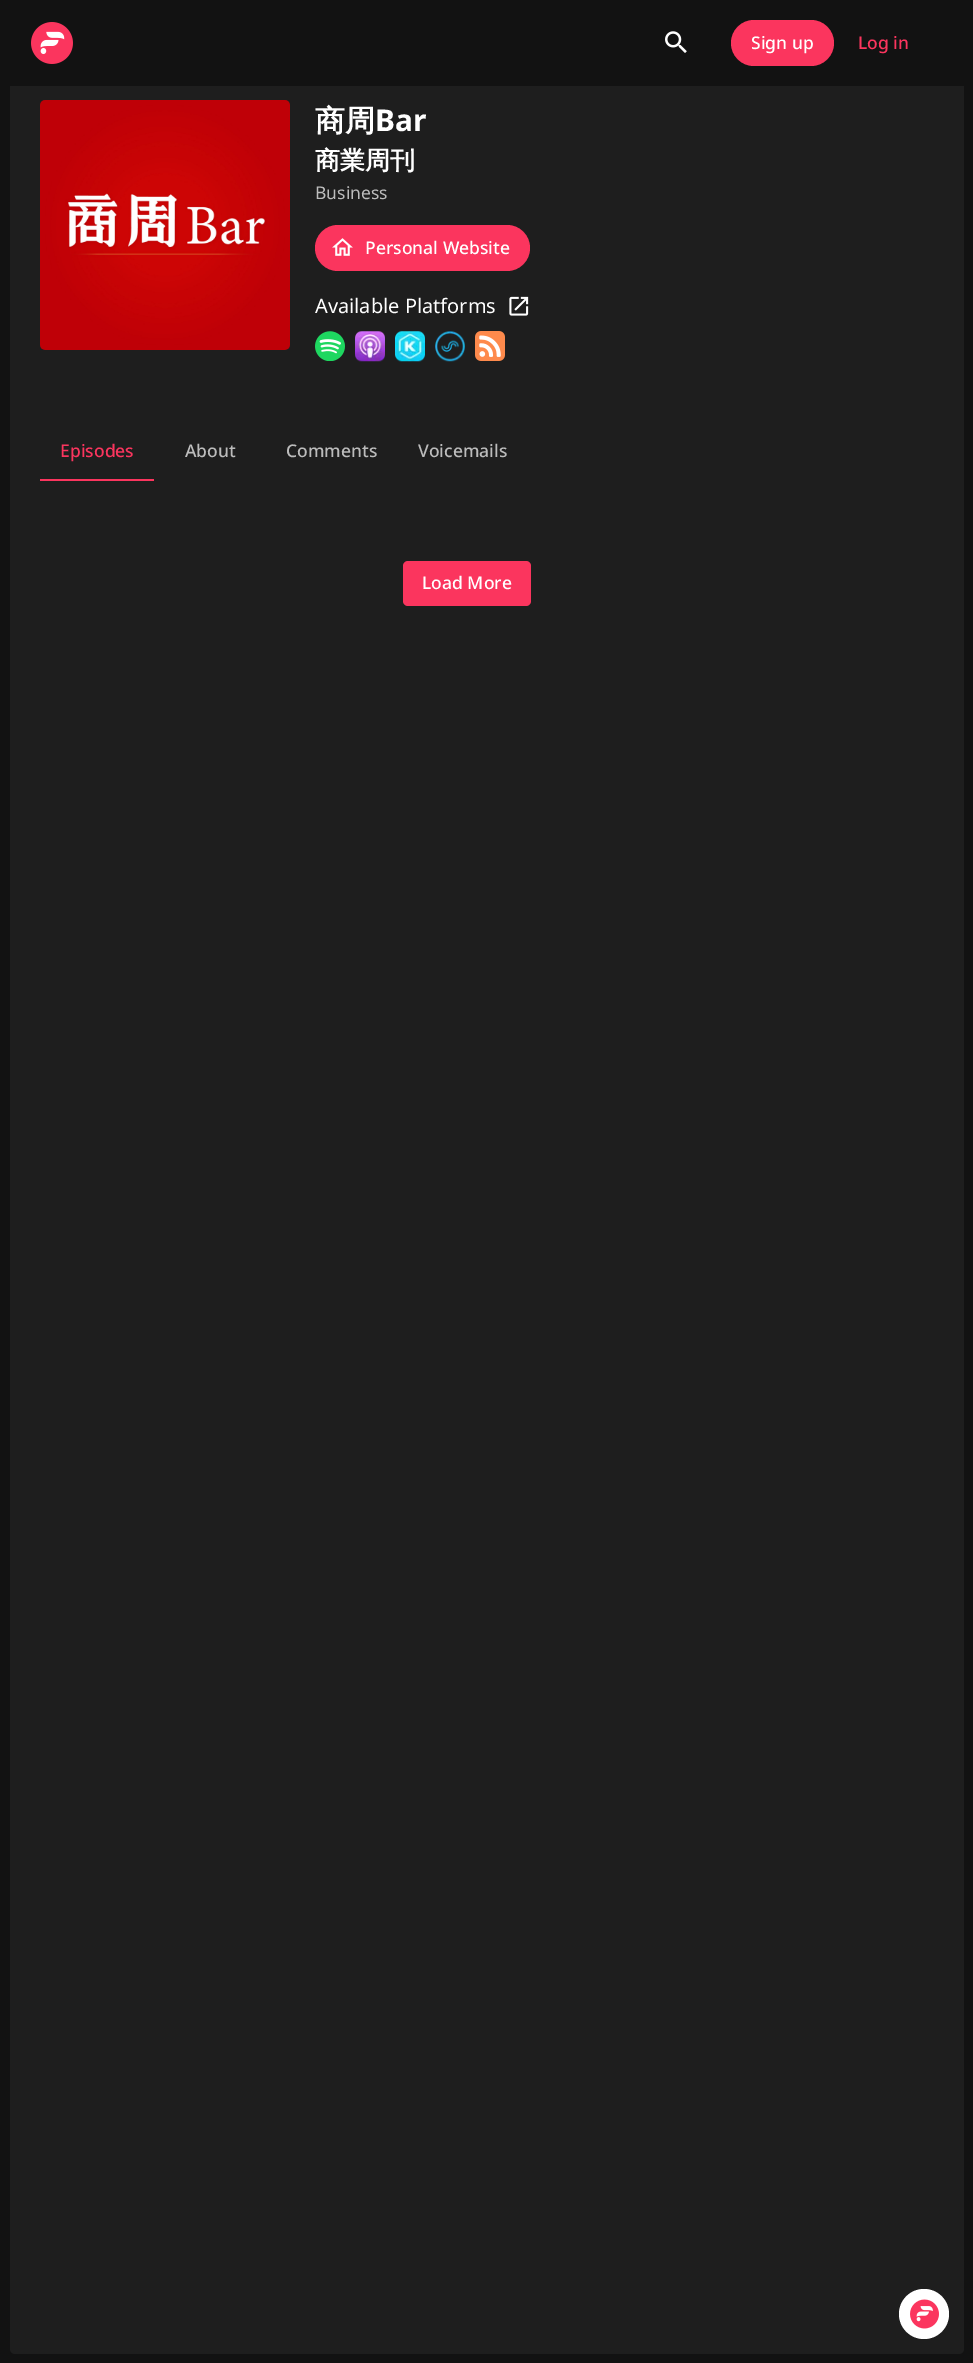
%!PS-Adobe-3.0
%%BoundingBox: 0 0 973 2363
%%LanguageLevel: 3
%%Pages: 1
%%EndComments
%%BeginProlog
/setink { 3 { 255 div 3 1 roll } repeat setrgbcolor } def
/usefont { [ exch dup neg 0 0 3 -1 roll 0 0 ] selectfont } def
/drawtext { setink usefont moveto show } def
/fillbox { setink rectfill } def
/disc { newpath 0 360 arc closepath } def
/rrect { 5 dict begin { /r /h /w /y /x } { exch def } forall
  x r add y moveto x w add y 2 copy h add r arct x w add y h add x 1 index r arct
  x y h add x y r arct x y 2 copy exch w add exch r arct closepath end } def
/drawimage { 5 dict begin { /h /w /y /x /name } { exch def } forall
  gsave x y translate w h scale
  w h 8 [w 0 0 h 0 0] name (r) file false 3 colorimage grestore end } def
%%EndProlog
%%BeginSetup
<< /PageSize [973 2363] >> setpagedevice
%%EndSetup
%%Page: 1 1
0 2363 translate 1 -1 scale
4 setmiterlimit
0 0 973 2363 18 18 18 fillbox
30 30 30 setink
10 80 954 2274 5 rrect fill
10 80 954 6 18 18 18 fillbox
(assets/img1.rgb) 31 22 42 42 drawimage
(assets/img2.rgb) 665 31 22 22 drawimage
251 53 94 setink
731 20 103 46 23 rrect fill
(Sign up) 751 49 /NotoSans-Medium 17.5 255 255 255 drawtext
(Log in) 858 49 /NotoSans-Medium 17.5 251 53 94 drawtext
(assets/img3.rgb) 40 100 250 250 drawimage
(商周) 315 131 /WenQuanYiZenHei-Bold 30 255 255 255 drawtext
(Bar) 375 131 /NotoSans-Bold 30 255 255 255 drawtext
(商業周刊) 315 169 /WenQuanYiZenHei-Bold 25 255 255 255 drawtext
(Business) 315 199 /NotoSans-Regular 17.5 188 188 188 drawtext
251 53 94 setink
315 225 215 46 23 rrect fill
(assets/img4.rgb) 332 238 21 18 drawimage
(Personal Website) 365 254 /NotoSans-Medium 17.5 255 255 255 drawtext
(Available Platforms) 315 313 /NotoSans-Regular 20 255 255 255 drawtext
(assets/img5.rgb) 509 296 20 20 drawimage
(assets/img6.rgb) 315 331 30 30 drawimage
(assets/img7.rgb) 355 331 30 31 drawimage
(assets/img8.rgb) 395 331 30 31 drawimage
(assets/img9.rgb) 435 331 30 31 drawimage
(assets/img10.rgb) 475 331 30 30 drawimage
(Episodes) 60 457 /NotoSans-Medium 17.5 251 53 94 drawtext
(About) 185 457 /NotoSans-Medium 17.5 188 188 188 drawtext
(Comments) 286 457 /NotoSans-Medium 17.5 188 188 188 drawtext
(Voicemails) 418 457 /NotoSans-Medium 17.5 188 188 188 drawtext
40 479 114 2 251 53 94 fillbox
403 561 128 45 5 rrect fill
(Load More) 422 589 /NotoSans-Medium 17.5 255 255 255 drawtext
924 2314 25 disc fill
(assets/img11.rgb) 910 2299 29 30 drawimage
showpage
%%EOF
